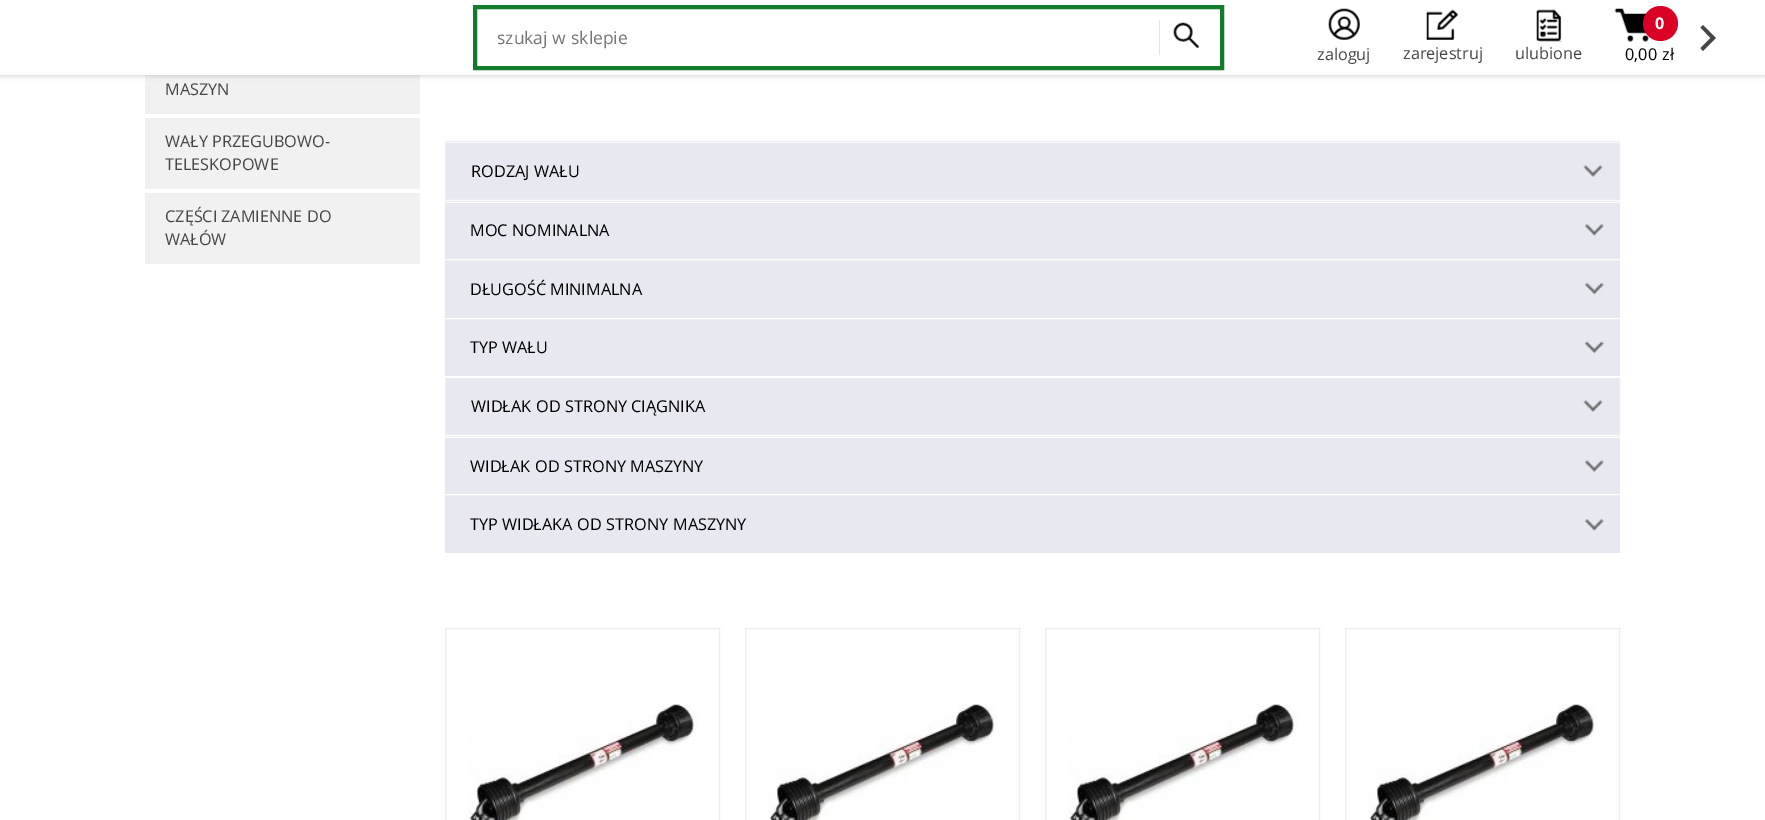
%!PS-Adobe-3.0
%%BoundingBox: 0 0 1765 820
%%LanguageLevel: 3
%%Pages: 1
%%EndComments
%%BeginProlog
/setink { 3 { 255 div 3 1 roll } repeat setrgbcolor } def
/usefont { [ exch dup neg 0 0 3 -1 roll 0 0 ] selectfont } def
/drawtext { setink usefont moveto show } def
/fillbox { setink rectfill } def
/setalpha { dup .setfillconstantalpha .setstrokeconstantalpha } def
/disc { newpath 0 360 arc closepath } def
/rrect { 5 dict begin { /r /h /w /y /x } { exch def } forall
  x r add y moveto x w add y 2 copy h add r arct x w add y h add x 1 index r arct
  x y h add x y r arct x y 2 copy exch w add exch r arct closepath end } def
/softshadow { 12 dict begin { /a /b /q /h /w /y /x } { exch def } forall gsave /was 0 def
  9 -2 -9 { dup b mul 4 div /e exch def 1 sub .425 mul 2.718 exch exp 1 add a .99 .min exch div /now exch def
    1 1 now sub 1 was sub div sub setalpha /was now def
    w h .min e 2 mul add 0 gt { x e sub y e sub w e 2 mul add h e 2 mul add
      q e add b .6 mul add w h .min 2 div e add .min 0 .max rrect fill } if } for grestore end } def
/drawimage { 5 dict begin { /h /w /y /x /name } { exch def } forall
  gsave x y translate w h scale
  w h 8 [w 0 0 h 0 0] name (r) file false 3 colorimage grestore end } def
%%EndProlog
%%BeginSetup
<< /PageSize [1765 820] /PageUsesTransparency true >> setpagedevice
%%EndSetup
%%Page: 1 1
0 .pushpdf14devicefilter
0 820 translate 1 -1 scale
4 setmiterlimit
0 0 1765 820 255 255 255 fillbox
145 75 275 39 241 241 241 fillbox
0 0 0 setink
0 1 1765 75 0 2.5 0.15 softshadow
0 0 1765 75 255 255 255 fillbox
20 123 44 setink
4 setlinewidth
475 7 747 61 rectstroke
(szukaj) 497 44 /OpenSans-Regular 17.5 117 117 117 drawtext
(w) 552 44 /OpenSans-Regular 17.5 117 117 117 drawtext
(sklepie) 571 44 /OpenSans-Regular 17.5 117 117 117 drawtext
1159 20 1 35 227 227 227 fillbox
(assets/img1.rgb) 1173 22 26 26 drawimage
(assets/img2.rgb) 1614 8 35 34 drawimage
218 0 37 setink
1660.5 23.5 17.5 disc fill
(0) 1655 29 /OpenSans-Bold 16.25 255 255 255 drawtext
69 69 69 setink
1716 38 moveto 1703 51 lineto 1700.5 48 lineto 1710.5 38 lineto 1700.5 27.5 lineto 1703 25 lineto closepath eofill
(0,00) 1625 60 /OpenSans-Regular 16.25 0 0 0 drawtext
(zł) 1662 60 /OpenSans-Regular 16.25 0 0 0 drawtext
(assets/img3.rgb) 1328 8 32 32 drawimage
(zaloguj) 1317 60 /OpenSans-Regular 16.25 70 70 70 drawtext
(assets/img4.rgb) 1426 9 32 31 drawimage
(zarejestruj) 1403 59 /OpenSans-Regular 16.25 70 70 70 drawtext
(assets/img5.rgb) 1536 9 26 33 drawimage
(ulubione) 1515 59 /OpenSans-Regular 16.25 70 70 70 drawtext
(MASZYN) 165 95 /OpenSans-Regular 16.25 70 70 70 drawtext
145 118 275 71 241 241 241 fillbox
(WAŁY) 165 147 /OpenSans-Regular 16.25 70 70 70 drawtext
(PRZEGUBOWO-) 212 147 /OpenSans-Regular 16.25 70 70 70 drawtext
(TELESKOPOWE) 165 170 /OpenSans-Regular 16.25 70 70 70 drawtext
145 193 275 71 241 241 241 fillbox
(CZĘŚCI) 165 222 /OpenSans-Regular 16.25 70 70 70 drawtext
(ZAMIENNE) 221 222 /OpenSans-Regular 16.25 70 70 70 drawtext
(DO) 307 222 /OpenSans-Regular 16.25 70 70 70 drawtext
(WAŁÓW) 165 245 /OpenSans-Regular 16.25 70 70 70 drawtext
235 237 243 setink
1 setlinewidth
445.5 141.5 1174 58 rectstroke
446 143 1173 56 231 232 240 fillbox
(RODZAJ) 471 177 /OpenSans-Regular 16.25 0 0 0 drawtext
(WAŁU) 534 177 /OpenSans-Regular 16.25 0 0 0 drawtext
(assets/img6.rgb) 1583 165 20 12 drawimage
445 201 1175 1 238 238 238 fillbox
445 203 1175 56 231 232 240 fillbox
(MOC) 470 236 /OpenSans-Regular 16.25 0 0 0 drawtext
(NOMINALNA) 512 236 /OpenSans-Regular 16.25 0 0 0 drawtext
(assets/img7.rgb) 1585 224 19 12 drawimage
445 260 1175 1 238 238 238 fillbox
445 261 1175 57 231 232 240 fillbox
(DŁUGOŚĆ) 470 295 /OpenSans-Regular 16.25 0 0 0 drawtext
(MINIMALNA) 550 295 /OpenSans-Regular 16.25 0 0 0 drawtext
(assets/img8.rgb) 1585 282 19 13 drawimage
445 319 1175 1 238 238 238 fillbox
445 320 1175 56 231 232 240 fillbox
(TYP) 470 353 /OpenSans-Regular 16.25 0 0 0 drawtext
(WAŁU) 502 353 /OpenSans-Regular 16.25 0 0 0 drawtext
(assets/img9.rgb) 1585 341 19 12 drawimage
235 237 243 setink
445.5 378.5 1174 56 rectstroke
446 379 1173 55 231 232 240 fillbox
(WIDŁAK) 471 412 /OpenSans-Regular 16.25 0 0 0 drawtext
(OD) 536 412 /OpenSans-Regular 16.25 0 0 0 drawtext
(STRONY) 565 412 /OpenSans-Regular 16.25 0 0 0 drawtext
(CIĄGNIKA) 631 412 /OpenSans-Regular 16.25 0 0 0 drawtext
(assets/img10.rgb) 1583 400 20 12 drawimage
445 436 1175 1 238 238 238 fillbox
445 438 1175 56 231 232 240 fillbox
(WIDŁAK) 470 472 /OpenSans-Regular 16.25 0 0 0 drawtext
(OD) 535 472 /OpenSans-Regular 16.25 0 0 0 drawtext
(STRONY) 564 472 /OpenSans-Regular 16.25 0 0 0 drawtext
(MASZYNY) 630 472 /OpenSans-Regular 16.25 0 0 0 drawtext
(assets/img11.rgb) 1585 460 19 12 drawimage
445 495 1175 1 238 238 238 fillbox
445 496 1175 57 231 232 240 fillbox
(TYP) 470 530 /OpenSans-Regular 16.25 0 0 0 drawtext
(WIDŁAKA) 502 530 /OpenSans-Regular 16.25 0 0 0 drawtext
(OD) 577 530 /OpenSans-Regular 16.25 0 0 0 drawtext
(STRONY) 606 530 /OpenSans-Regular 16.25 0 0 0 drawtext
(MASZYNY) 673 530 /OpenSans-Regular 16.25 0 0 0 drawtext
(assets/img7.rgb) 1585 519 19 12 drawimage
237 237 237 setink
445.5 628.5 274 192 rectstroke
(assets/img12.rgb) 468 704 229 116 drawimage
745.5 628.5 274 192 rectstroke
(assets/img13.rgb) 768 704 229 116 drawimage
1045.5 628.5 274 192 rectstroke
(assets/img14.rgb) 1068 704 229 116 drawimage
1345.5 628.5 274 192 rectstroke
(assets/img15.rgb) 1368 704 229 116 drawimage
.poppdf14devicefilter showpage
%%EOF
